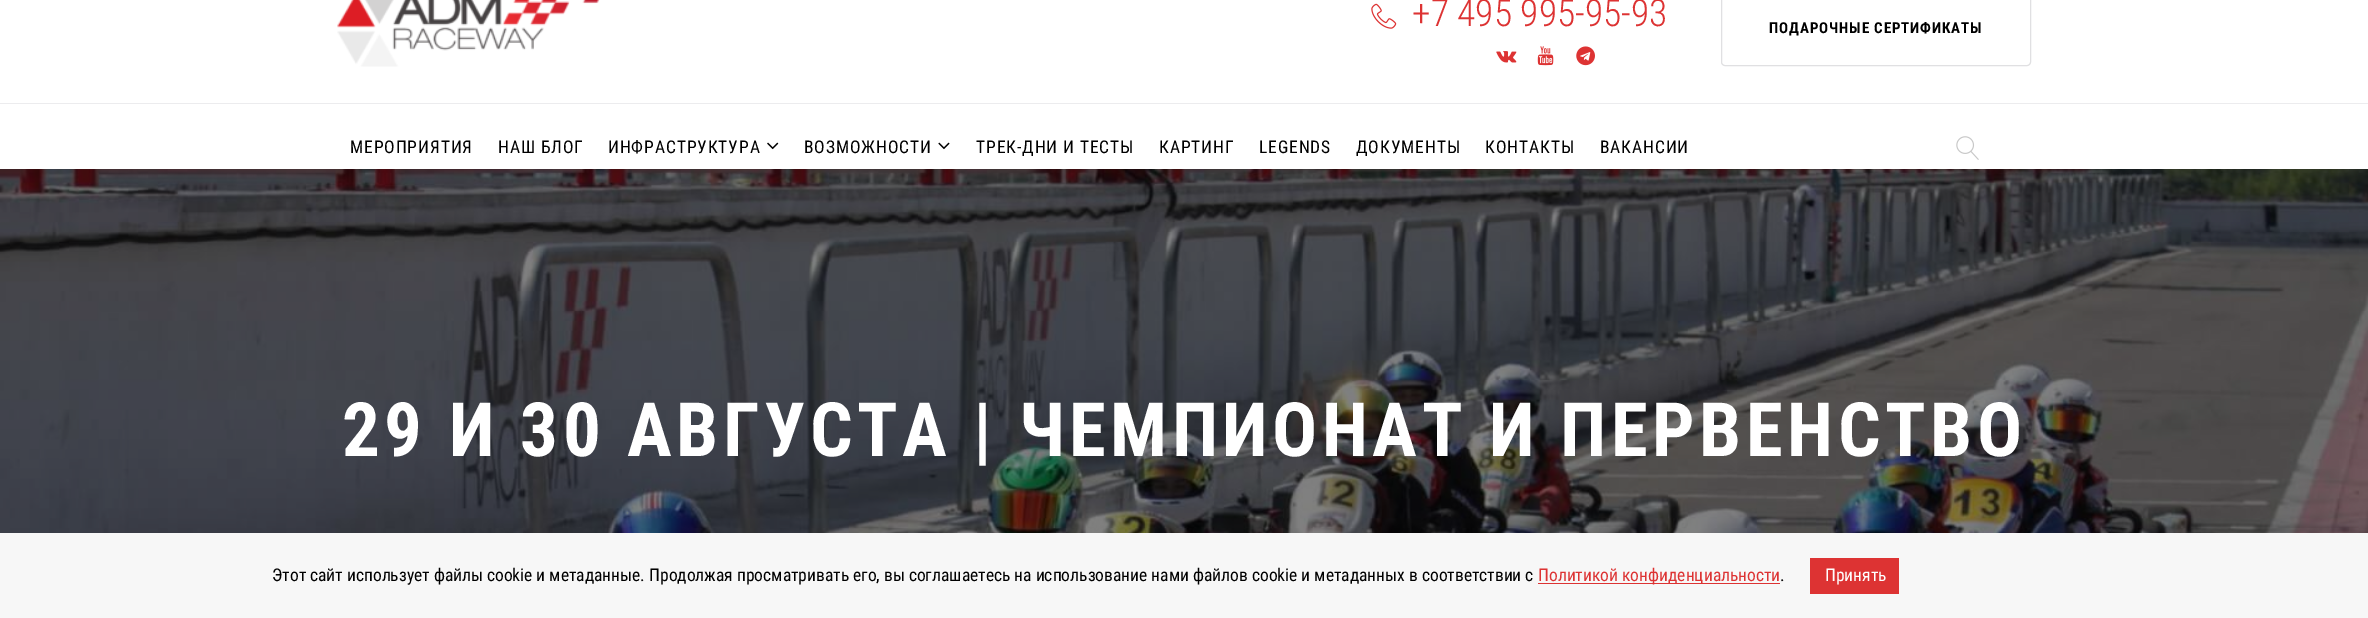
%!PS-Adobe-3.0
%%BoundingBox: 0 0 2368 618
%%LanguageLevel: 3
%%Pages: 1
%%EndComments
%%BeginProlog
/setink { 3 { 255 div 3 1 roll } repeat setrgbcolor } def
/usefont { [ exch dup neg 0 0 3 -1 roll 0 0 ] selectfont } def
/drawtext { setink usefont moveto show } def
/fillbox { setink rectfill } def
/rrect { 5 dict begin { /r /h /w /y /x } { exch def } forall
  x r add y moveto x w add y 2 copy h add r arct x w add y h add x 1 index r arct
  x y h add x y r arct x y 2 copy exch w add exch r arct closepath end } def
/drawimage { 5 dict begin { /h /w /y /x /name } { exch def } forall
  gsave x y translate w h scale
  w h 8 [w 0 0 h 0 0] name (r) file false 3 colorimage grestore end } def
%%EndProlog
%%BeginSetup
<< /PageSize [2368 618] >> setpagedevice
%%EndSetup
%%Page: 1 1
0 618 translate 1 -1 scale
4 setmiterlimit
0 0 2368 618 255 255 255 fillbox
(assets/img1.rgb) 337 0 263 67 drawimage
(assets/img2.rgb) 1371 3 26 26 drawimage
(+7 495 995-95-93) 1412 26 /RobotoCondensed-Light 37.5 221 51 51 drawtext
(assets/img3.rgb) 1496 51 21 12 drawimage
(assets/img4.rgb) 1537 46 17 20 drawimage
(assets/img5.rgb) 1576 46 19 20 drawimage
224 224 226 setink
1721.5 -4.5 309 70 3.5 rrect stroke
/RobotoCondensed-Bold 15 usefont
0 0 0 setink
1769 33 moveto 0.9 0 (ПОДАРОЧНЫЕ СЕРТИФИКАТЫ) ashow
0 103 2368 1 236 236 238 fillbox
/RobotoCondensed-Regular 17.5 usefont
0 0 0 setink
350 153 moveto 0.9 0 (МЕРОПРИЯТИЯ) ashow
498 153 moveto 0.9 0 (НАШ БЛОГ) ashow
608 153 moveto 0.9 0 (ИНФРАСТРУКТУРА) ashow
(assets/img6.rgb) 767 142 12 8 drawimage
804 153 moveto 0.9 0 (ВОЗМОЖНОСТИ) ashow
(assets/img7.rgb) 938 142 12 8 drawimage
976 153 moveto 0.9 0 (ТРЕК-ДНИ И ТЕСТЫ) ashow
1159 153 moveto 0.9 0 (КАРТИНГ) ashow
1259 153 moveto 0.9 0 (LEGENDS) ashow
1356 153 moveto 0.9 0 (ДОКУМЕНТЫ) ashow
1485 153 moveto 0.9 0 (КОНТАКТЫ) ashow
1600 153 moveto 0.9 0 (ВАКАНСИИ) ashow
(assets/img8.rgb) 1956 136 23 24 drawimage
0 169 2368 364 0 0 0 fillbox
(assets/img9.rgb) 0 169 2368 364 drawimage
/RobotoCondensed-Bold 75 usefont
255 255 255 setink
342 456 moveto 4.5 0 (29 И 30 АВГУСТА | ЧЕМПИОНАТ И ПЕРВЕНСТВО) ashow
0 533 2368 85 247 247 247 fillbox
(Этот сайт использует файлы cookie и метаданные. Продолжая просматривать его, вы соглашаетесь на использование нами файлов cookie и метаданных в соответствии с) 272 581 /RobotoCondensed-Regular 17.5 0 0 0 drawtext
1538 583 242 1 221 51 51 fillbox
(Политикой конфиденциальности) 1538 581 /RobotoCondensed-Regular 17.5 221 51 51 drawtext
(.) 1780 581 /RobotoCondensed-Regular 17.5 0 0 0 drawtext
1810 558 89 36 221 51 51 fillbox
(Принять) 1825 581 /RobotoCondensed-Regular 17.5 255 255 255 drawtext
showpage
%%EOF
